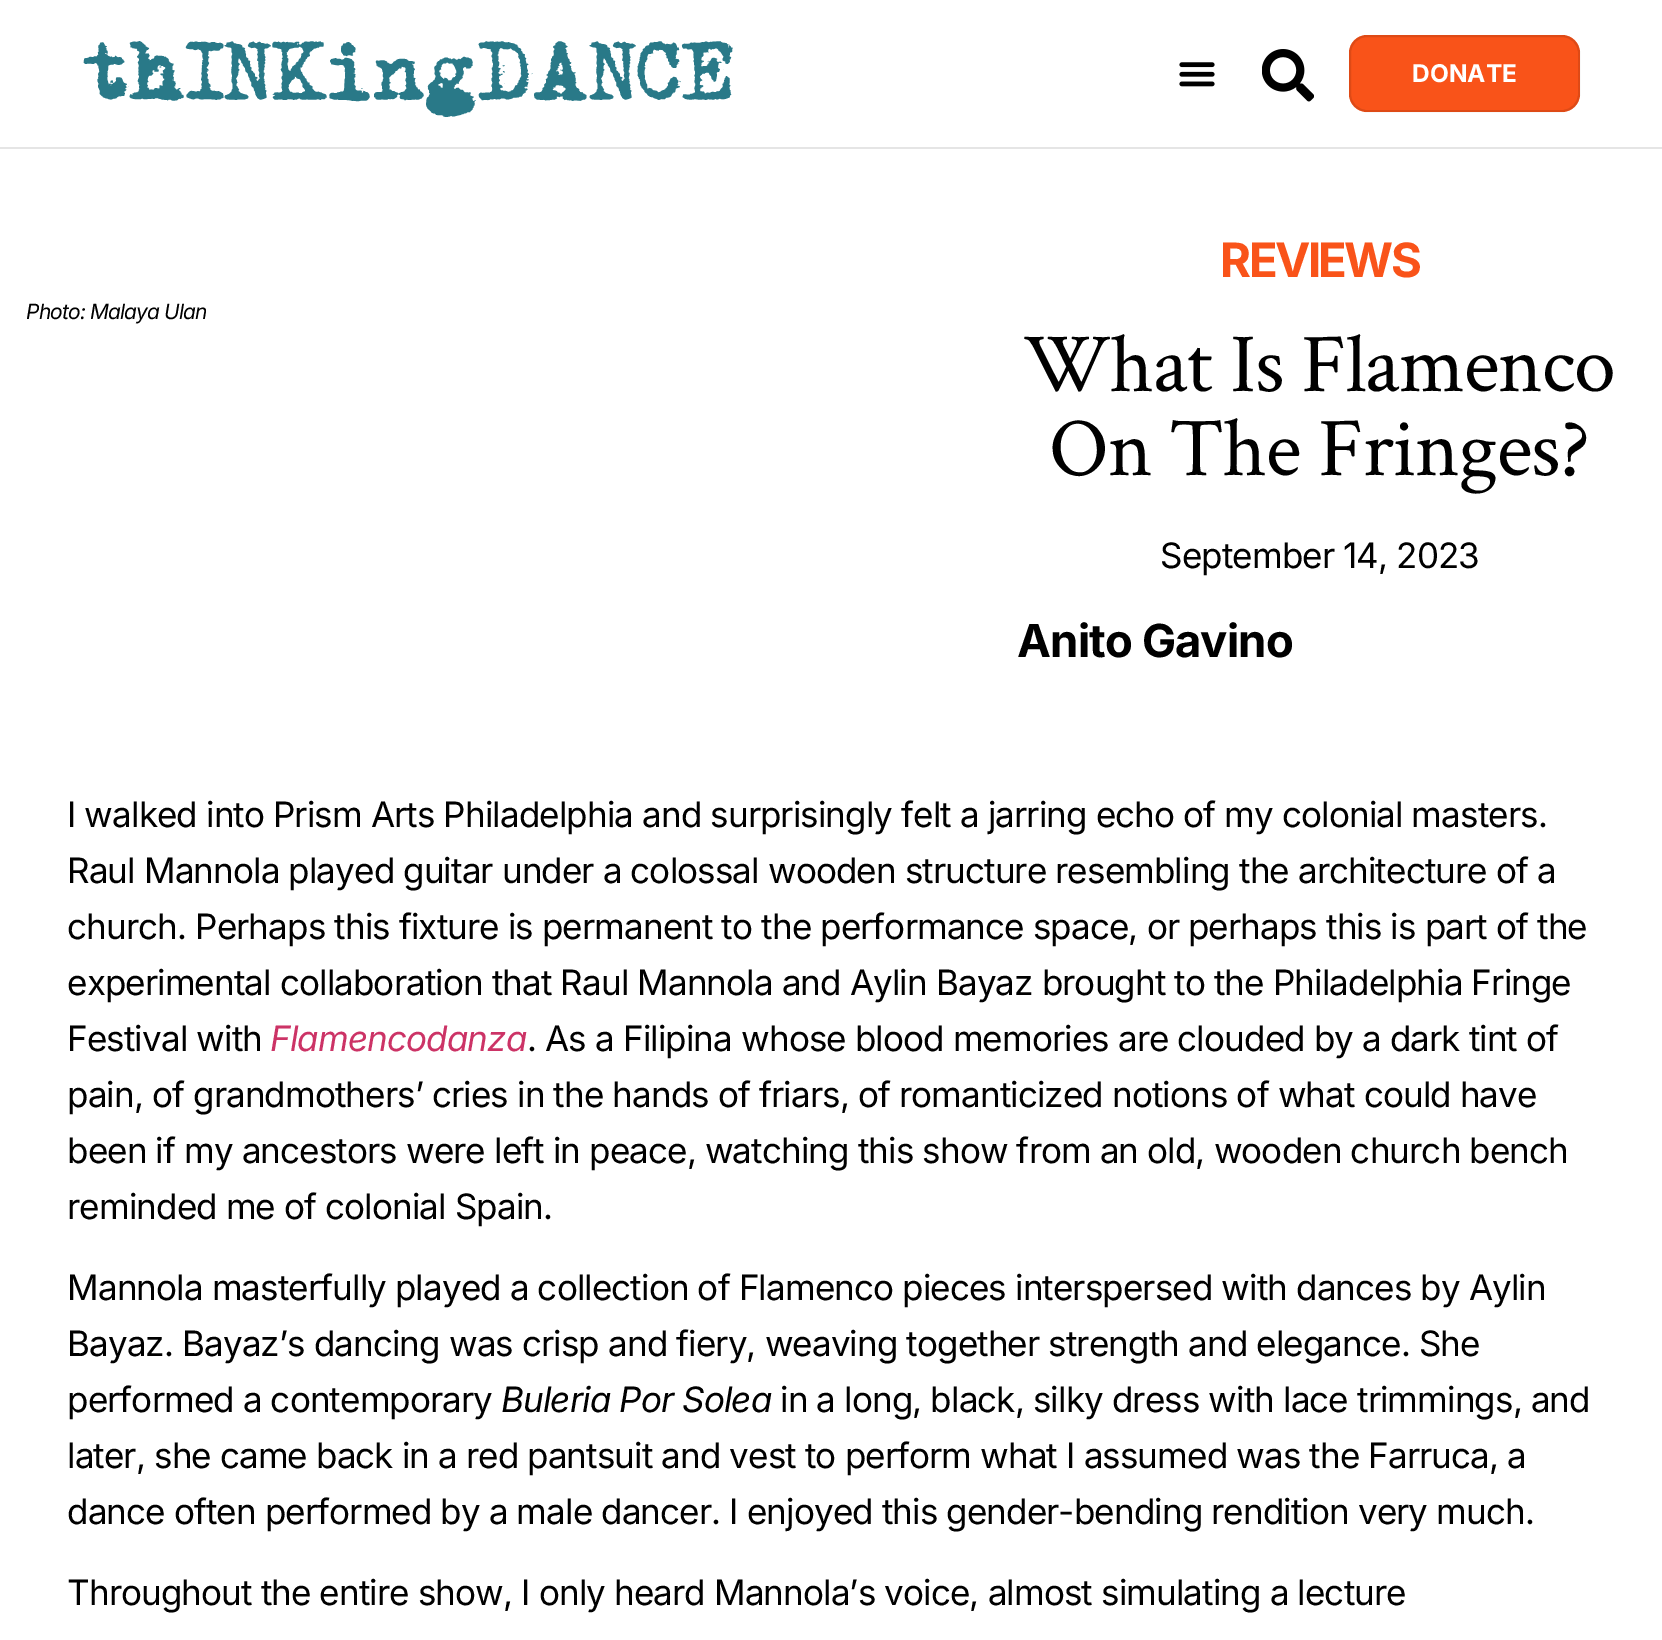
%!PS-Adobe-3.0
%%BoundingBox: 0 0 1662 1640
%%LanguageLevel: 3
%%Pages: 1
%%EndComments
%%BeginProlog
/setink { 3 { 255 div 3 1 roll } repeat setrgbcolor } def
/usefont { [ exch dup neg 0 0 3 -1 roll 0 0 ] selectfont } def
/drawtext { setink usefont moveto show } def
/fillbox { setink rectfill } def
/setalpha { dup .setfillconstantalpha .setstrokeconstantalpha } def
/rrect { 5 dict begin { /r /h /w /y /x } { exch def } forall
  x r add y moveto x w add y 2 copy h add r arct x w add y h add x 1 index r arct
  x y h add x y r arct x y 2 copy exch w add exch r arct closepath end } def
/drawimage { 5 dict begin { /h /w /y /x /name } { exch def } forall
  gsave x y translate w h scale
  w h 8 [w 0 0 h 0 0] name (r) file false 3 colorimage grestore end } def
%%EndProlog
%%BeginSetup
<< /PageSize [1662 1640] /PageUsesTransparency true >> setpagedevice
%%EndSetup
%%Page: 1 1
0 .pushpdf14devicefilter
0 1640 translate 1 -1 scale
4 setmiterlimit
0 0 1662 1640 255 255 255 fillbox
0 147 1662 2 229 229 229 fillbox
/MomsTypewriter-Regular 73.5 usefont
41 121 136 setink
83 100 moveto -0.88 0 (thINKingDANCE) ashow
(assets/img1.rgb) 1179 62 36 25 drawimage
(assets/img2.rgb) 1262 49 52 53 drawimage
249 83 25 setink
1349 35 231 77 18 rrect fill
0.11 setalpha
0 0 0 setink
2 setlinewidth
1350 36 229 75 17 rrect stroke
1 setalpha
(DONATE) 1412 82 /Inter-Bold 24.5 255 255 255 drawtext
/Inter-Italic 21 usefont
0 0 0 setink
26 319 moveto -0.88 0 (Photo: Malaya Ulan) ashow
/Inter-Bold 47.25 usefont
249 83 25 setink
1220 277 moveto -2.5 0 (REVIEWS) ashow
/CrimsonText-Regular 84 usefont
0 0 0 setink
1023 391 moveto -0.88 0 (What Is Flamenco) ashow
1049 475 moveto -0.88 0 (On The Fringes?) ashow
/Inter-Regular 35 usefont
1160 568 moveto -0.88 0 (September 14, 2023) ashow
/Inter-Bold 45.5 usefont
1017 657 moveto -0.88 0 (Anito Gavino) ashow
/Inter-Regular 35 usefont
67 827 moveto -0.88 0 (I walked into Prism Arts Philadelphia and surprisingly felt a jarring echo of my colonial masters.) ashow
67 883 moveto -0.88 0 (Raul Mannola played guitar under a colossal wooden structure resembling the architecture of a) ashow
67 939 moveto -0.88 0 (church. Perhaps this fixture is permanent to the performance space, or perhaps this is part of the) ashow
67 995 moveto -0.88 0 (experimental collaboration that Raul Mannola and Aylin Bayaz brought to the Philadelphia Fringe) ashow
67 1051 moveto -0.88 0 (Festival with) ashow
/Inter-Italic 35 usefont
204 51 102 setink
270 1051 moveto -0.88 0 (Flamencodanza) ashow
/Inter-Regular 35 usefont
0 0 0 setink
527 1051 moveto -0.88 0 (. As a Filipina whose blood memories are clouded by a dark tint of) ashow
67 1107 moveto -0.88 0 (pain, of grandmothers’ cries in the hands of friars, of romanticized notions of what could have) ashow
67 1163 moveto -0.88 0 (been if my ancestors were left in peace, watching this show from an old, wooden church bench) ashow
67 1219 moveto -0.88 0 (reminded me of colonial Spain.) ashow
67 1300 moveto -0.88 0 (Mannola masterfully played a collection of Flamenco pieces interspersed with dances by Aylin) ashow
67 1356 moveto -0.88 0 (Bayaz. Bayaz’s dancing was crisp and fiery, weaving together strength and elegance. She) ashow
67 1412 moveto -0.88 0 (performed a contemporary) ashow
/Inter-Italic 35 usefont
501 1412 moveto -0.88 0 (Buleria Por Solea) ashow
/Inter-Regular 35 usefont
780 1412 moveto -0.88 0 (in a long, black, silky dress with lace trimmings, and) ashow
67 1468 moveto -0.88 0 (later, she came back in a red pantsuit and vest to perform what I assumed was the Farruca, a) ashow
67 1524 moveto -0.88 0 (dance often performed by a male dancer. I enjoyed this gender-bending rendition very much.) ashow
67 1605 moveto -0.88 0 (Throughout the entire show, I only heard Mannola’s voice, almost simulating a lecture) ashow
.poppdf14devicefilter showpage
%%EOF
